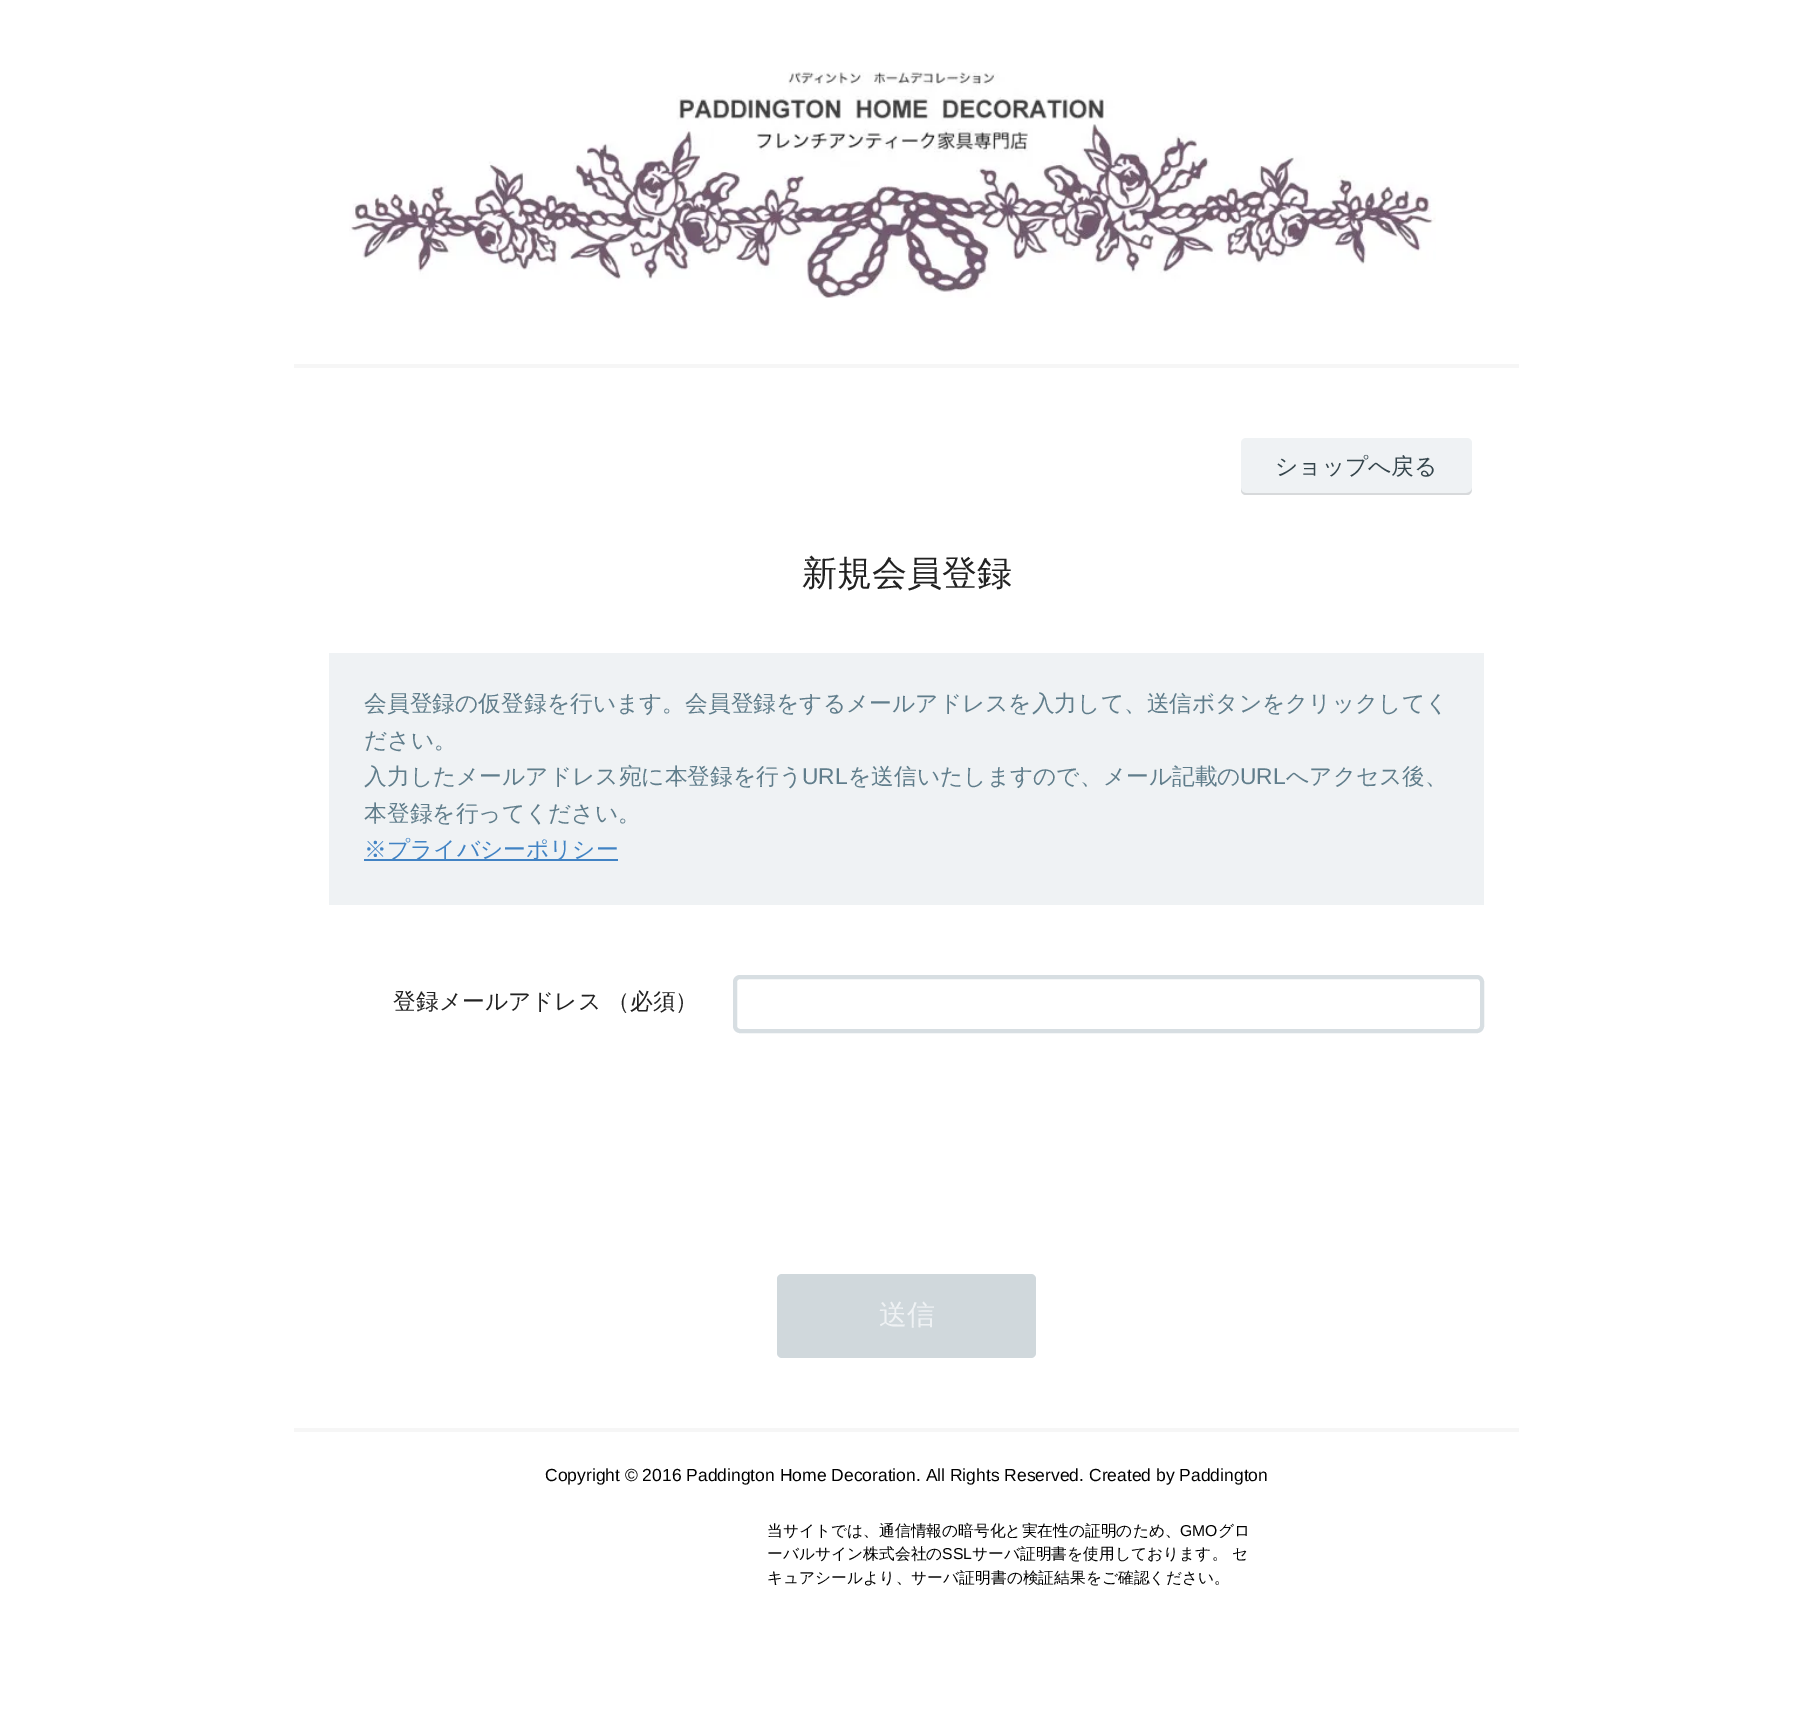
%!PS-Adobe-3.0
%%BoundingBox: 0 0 1813 1716
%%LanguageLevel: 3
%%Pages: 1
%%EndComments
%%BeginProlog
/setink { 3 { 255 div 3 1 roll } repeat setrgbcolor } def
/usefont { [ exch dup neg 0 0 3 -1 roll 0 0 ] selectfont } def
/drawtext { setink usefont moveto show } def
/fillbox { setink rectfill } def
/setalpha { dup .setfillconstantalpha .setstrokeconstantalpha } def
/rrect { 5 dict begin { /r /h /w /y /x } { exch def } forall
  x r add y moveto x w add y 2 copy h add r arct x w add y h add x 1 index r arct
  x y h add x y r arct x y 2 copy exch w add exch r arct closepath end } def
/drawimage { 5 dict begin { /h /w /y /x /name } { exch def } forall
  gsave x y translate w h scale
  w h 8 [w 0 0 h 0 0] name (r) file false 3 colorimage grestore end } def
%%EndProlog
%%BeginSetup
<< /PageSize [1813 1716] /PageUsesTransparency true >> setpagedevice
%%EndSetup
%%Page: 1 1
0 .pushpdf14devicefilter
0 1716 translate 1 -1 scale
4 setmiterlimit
0 0 1813 1716 255 255 255 fillbox
(assets/img1.rgb) 349 72 1087 226 drawimage
294 364 1225 4 246 246 246 fillbox
294 1428 1225 4 246 246 246 fillbox
239 242 244 setink
1241 438 231 57 5 rrect fill
0.1 setalpha
0 0 0 setink
1241 488 moveto 1241 491 1241 494 1245 495 curveto 1467 495 lineto 1471 495 1472 491 1472 488 curveto 1472 491 1469 493 1466 493 curveto 1246 493 lineto 1243 493 1241 491 1241 488 curveto closepath fill
1 setalpha
(ショップへ戻る) 1275 474 /WenQuanYiZenHei-Medium 22.75 53 69 76 drawtext
(新規会員登録) 802 585 /WenQuanYiZenHei-Medium 35 34 34 34 drawtext
329 653 1155 252 239 242 244 fillbox
(会員登録の仮登録を行います。会員登録をするメールアドレスを入力して、送信ボタンをクリックしてく) 364 711 /WenQuanYiZenHei-Medium 22.75 96 125 139 drawtext
(ださい。) 364 748 /WenQuanYiZenHei-Medium 22.75 96 125 139 drawtext
(入力したメールアドレス宛に本登録を行う) 364 784 /WenQuanYiZenHei-Medium 22.75 96 125 139 drawtext
(URL) 802 784 /LiberationSans-Regular 22.75 96 125 139 drawtext
(を送信いたしますので、メール記載の) 848 784 /WenQuanYiZenHei-Medium 22.75 96 125 139 drawtext
(URL) 1240 784 /LiberationSans-Regular 22.75 96 125 139 drawtext
(へアクセス後、) 1286 784 /WenQuanYiZenHei-Medium 22.75 96 125 139 drawtext
(本登録を行ってください。) 364 821 /WenQuanYiZenHei-Medium 22.75 96 125 139 drawtext
364 859 254 2 65 131 196 fillbox
(※プライバシーポリシー) 364 857 /WenQuanYiZenHei-Medium 22.75 65 131 196 drawtext
(登録メールアドレス) 393 1009 /WenQuanYiZenHei-Medium 22.75 34 34 34 drawtext
(（必須）) 607 1009 /WenQuanYiZenHei-Medium 22.75 34 34 34 drawtext
215 222 226 setink
4 setlinewidth
735 977 747 54 5 rrect stroke
208 216 220 setink
777 1274 259 84 5 rrect fill
(送信) 879 1324 /WenQuanYiZenHei-Medium 28 239 242 244 drawtext
(Copyright © 2016 Paddington Home Decoration. All Rights Reserved. Created by Paddington) 545 1481 /LiberationSans-Regular 17.5 0 0 0 drawtext
(当サイトでは、通信情報の暗号化と実在性の証明のため、) 767 1536 /WenQuanYiZenHei-Medium 15.75 0 0 0 drawtext
(GMO) 1180 1536 /LiberationSans-Regular 15.75 0 0 0 drawtext
(グロ) 1218 1536 /WenQuanYiZenHei-Medium 15.75 0 0 0 drawtext
(ーバルサイン株式会社の) 767 1559 /WenQuanYiZenHei-Medium 15.75 0 0 0 drawtext
(SSL) 942 1559 /LiberationSans-Regular 15.75 0 0 0 drawtext
(サーバ証明書を使用しております。 セ) 972 1559 /WenQuanYiZenHei-Medium 15.75 0 0 0 drawtext
(キュアシールより、サーバ証明書の検証結果をご確認ください。) 767 1583 /WenQuanYiZenHei-Medium 15.75 0 0 0 drawtext
.poppdf14devicefilter showpage
%%EOF
